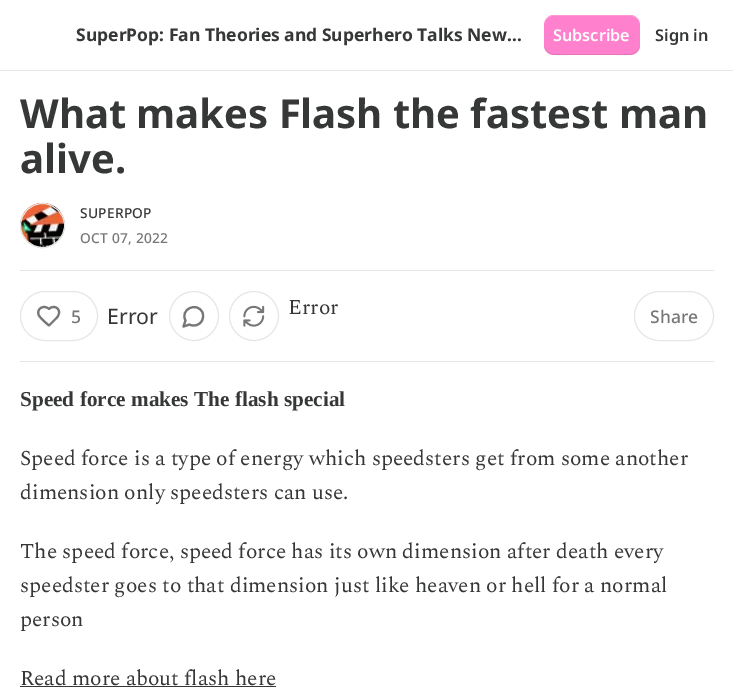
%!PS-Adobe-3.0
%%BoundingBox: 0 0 733 700
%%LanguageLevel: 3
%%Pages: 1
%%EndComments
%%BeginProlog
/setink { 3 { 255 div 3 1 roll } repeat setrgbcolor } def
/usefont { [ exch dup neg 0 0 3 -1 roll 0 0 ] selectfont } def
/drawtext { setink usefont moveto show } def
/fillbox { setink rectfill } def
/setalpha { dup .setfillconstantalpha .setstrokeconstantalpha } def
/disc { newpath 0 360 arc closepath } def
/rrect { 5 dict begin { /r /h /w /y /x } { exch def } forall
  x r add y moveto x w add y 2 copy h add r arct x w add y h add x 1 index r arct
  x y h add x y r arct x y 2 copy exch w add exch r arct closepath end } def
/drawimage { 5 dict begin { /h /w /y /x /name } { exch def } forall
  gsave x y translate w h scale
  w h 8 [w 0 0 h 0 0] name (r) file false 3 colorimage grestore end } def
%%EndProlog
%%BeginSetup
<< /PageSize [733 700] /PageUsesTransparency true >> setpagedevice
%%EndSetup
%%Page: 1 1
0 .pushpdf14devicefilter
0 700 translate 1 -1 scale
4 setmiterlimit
0 0 733 700 255 255 255 fillbox
0 70 733 1 230 230 230 fillbox
(SuperPop: Fan Theories and Superhero Talks New…) 76 41 /NotoSans-Bold 17.5 54 55 55 drawtext
255 129 205 setink
544 15 96 40 10 rrect fill
0.1 setalpha
0 0 0 setink
544 44 moveto 544 57 557 55 567 55 curveto 617 55 lineto 627 55 640 57 640 44 curveto 640 49 636 54 630 54 curveto 554 54 lineto 548 54 544 49 544 44 curveto closepath fill
0.2 setalpha
255 255 255 setink
554 16 moveto 630 16 lineto 636 16 640 21 640 26 curveto 640 13 627 15 617 15 curveto 567 15 lineto 557 15 544 13 544 26 curveto 544 21 548 16 554 16 curveto closepath fill
1 setalpha
(Subscribe) 553 41 /NotoSans-SemiBold 16.25 255 255 255 drawtext
(Sign in) 655 41 /NotoSans-SemiBold 16.25 54 55 55 drawtext
(What makes Flash the fastest man) 20 128 /NotoSans-Bold 40 54 55 55 drawtext
(alive.) 20 173 /NotoSans-Bold 40 54 55 55 drawtext
230 230 230 setink
42.5 225.5 22 disc stroke
(assets/img1.rgb) 20 202 45 46 drawimage
42.5 225.5 22 disc stroke
/NotoSans-Medium 13.75 usefont
54 55 55 setink
80 218 moveto 0.25 0 (SUPERPOP) ashow
119 119 119 setink
80 243 moveto 0.25 0 (OCT 07, 2022) ashow
20 270 694 1 230 230 230 fillbox
20 361 694 1 230 230 230 fillbox
20.5 291.5 77 49 24.5 rrect stroke
119 119 119 setink
2.1 setlinewidth
1 setlinecap
1 setlinejoin
56 318.5 moveto 64 311 55 303 49 309 curveto 44.5 304.5 36.5 308 38.5 314.5 curveto 39.5 317.5 46 323 49 325.5 curveto closepath stroke
(5) 71 323 /NotoSans-Medium 17.5 119 119 119 drawtext
(Error) 107 324 /NotoSans-Regular 21.25 54 55 55 drawtext
230 230 230 setink
1 setlinewidth
0 setlinecap
0 setlinejoin
194 316 24.5 disc stroke
119 119 119 setink
2.1 setlinewidth
1 setlinecap
1 setlinejoin
189.5 324.5 moveto 194 327 200 325 202 320.5 curveto 203.5 318 203.5 315 202.5 312.5 curveto 197 301 179.5 309.5 185.5 320.5 curveto 183.5 326.5 lineto closepath stroke
230 230 230 setink
1 setlinewidth
0 setlinecap
0 setlinejoin
254 316 24.5 disc stroke
(assets/img2.rgb) 243 305 22 22 drawimage
(Error) 288 314 /Spectral-Regular 21.25 54 55 55 drawtext
230 230 230 setink
634.5 291.5 79 49 24.5 rrect stroke
(Share) 650 323 /NotoSans-Medium 17.5 119 119 119 drawtext
(Speed force makes The flash special) 20 406 /LiberationSerif-Bold 21.25 54 55 55 drawtext
(Speed force is a type of energy which speedsters get from some another) 20 465 /Spectral-Regular 21.25 54 55 55 drawtext
(dimension only speedsters can use.) 20 499 /Spectral-Regular 21.25 54 55 55 drawtext
(The speed force, speed force has its own dimension after death every) 20 558 /Spectral-Regular 21.25 54 55 55 drawtext
(speedster goes to that dimension just like heaven or hell for a normal) 20 592 /Spectral-Regular 21.25 54 55 55 drawtext
(person) 20 626 /Spectral-Regular 21.25 54 55 55 drawtext
(Read more about flash here) 20 685 /Spectral-Regular 21.25 54 55 55 drawtext
20 686 256 1 54 55 55 fillbox
.poppdf14devicefilter showpage
%%EOF
